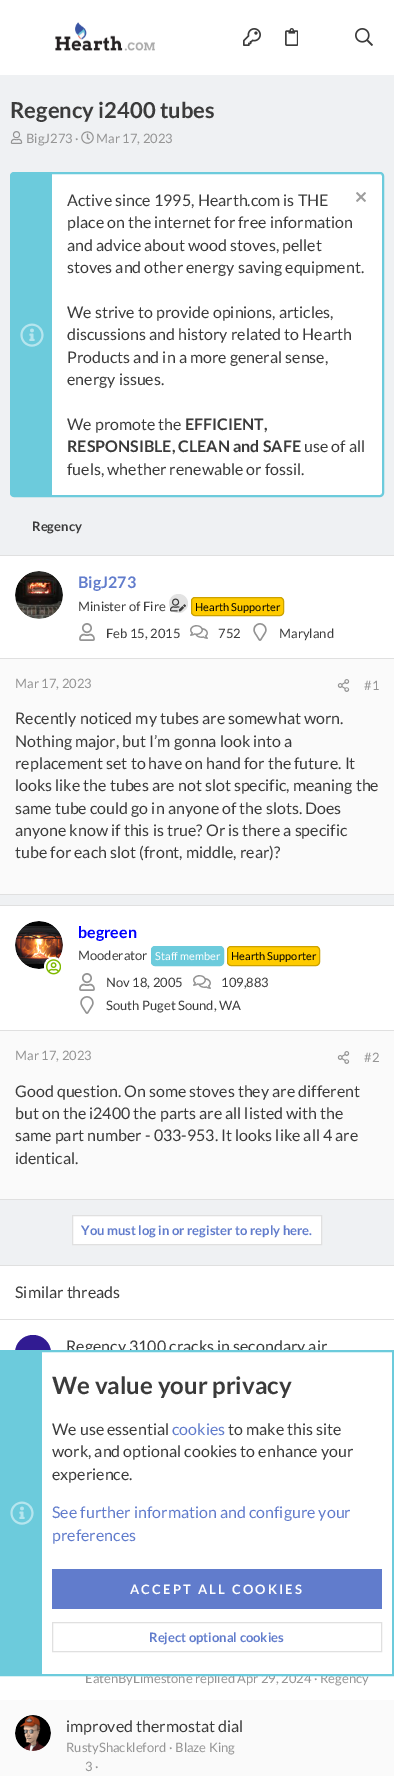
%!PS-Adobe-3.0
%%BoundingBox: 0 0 394 1776
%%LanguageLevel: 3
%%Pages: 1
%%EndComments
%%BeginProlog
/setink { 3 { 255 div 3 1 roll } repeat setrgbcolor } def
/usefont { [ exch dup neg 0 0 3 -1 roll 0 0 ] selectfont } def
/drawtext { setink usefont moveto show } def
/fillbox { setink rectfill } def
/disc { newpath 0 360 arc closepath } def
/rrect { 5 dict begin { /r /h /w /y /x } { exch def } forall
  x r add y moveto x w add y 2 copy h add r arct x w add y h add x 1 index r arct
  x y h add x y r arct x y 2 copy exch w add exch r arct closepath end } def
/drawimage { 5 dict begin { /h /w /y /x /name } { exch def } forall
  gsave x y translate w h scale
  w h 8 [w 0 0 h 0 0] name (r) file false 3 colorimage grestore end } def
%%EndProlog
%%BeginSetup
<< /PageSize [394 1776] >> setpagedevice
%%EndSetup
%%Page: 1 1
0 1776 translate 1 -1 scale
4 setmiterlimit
0 0 394 1776 239 241 243 fillbox
0 0 394 75 255 255 255 fillbox
(assets/img1.rgb) 55 22 100 29 drawimage
(assets/img2.rgb) 243 28 18 18 drawimage
(assets/img3.rgb) 285 28 13 18 drawimage
(assets/img4.rgb) 355 28 18 18 drawimage
(Regency i2400 tubes) 10 118 /Lato-Bold 22 59 59 59 drawtext
(assets/img5.rgb) 10 131 13 13 drawimage
(BigJ273 ·) 26 143 /Lato-Regular 13 148 148 148 drawtext
(assets/img6.rgb) 81 131 13 13 drawimage
(Mar 17, 2023) 96 143 /Lato-Regular 13 148 148 148 drawtext
255 255 255 setink
11 173 372 323 3 rrect gsave fill grestore
108 203 220 setink
2 setlinewidth
stroke
12 174 40 321 108 203 220 fillbox
(assets/img7.rgb) 20 323 24 24 drawimage
(Active since 1995, Hearth.com is THE) 67 206 /Lato-Regular 16 59 59 59 drawtext
(assets/img8.rgb) 356 192 10 10 drawimage
(place on the internet for free information) 67 228 /Lato-Regular 16 59 59 59 drawtext
(and advice about wood stoves, pellet) 67 251 /Lato-Regular 16 59 59 59 drawtext
(stoves and other energy saving equipment.) 67 273 /Lato-Regular 16 59 59 59 drawtext
(We strive to provide opinions, articles,) 67 318 /Lato-Regular 16 59 59 59 drawtext
(discussions and history related to Hearth) 67 340 /Lato-Regular 16 59 59 59 drawtext
(Products and in a more general sense,) 67 363 /Lato-Regular 16 59 59 59 drawtext
(energy issues.) 67 385 /Lato-Regular 16 59 59 59 drawtext
(We promote the) 67 430 /Lato-Regular 16 59 59 59 drawtext
(EFFICIENT,) 185 430 /Lato-Bold 16 59 59 59 drawtext
(RESPONSIBLE, CLEAN and SAFE) 67 452 /Lato-Bold 16 59 59 59 drawtext
(use of all) 304 452 /Lato-Regular 16 59 59 59 drawtext
(fuels, whether renewable or fossil.) 67 475 /Lato-Regular 16 59 59 59 drawtext
(Regency) 32 531 /Lato-Bold 13 59 59 59 drawtext
0 659 394 235 250 250 250 fillbox
0 555 394 1 224 224 224 fillbox
0 894 394 1 224 224 224 fillbox
0 556 394 102 255 255 255 fillbox
0 658 394 1 224 224 224 fillbox
(assets/img9.rgb) 15 571 48 48 drawimage
(BigJ273) 78 588 /Lato-Bold 16 97 124 204 drawtext
(Minister of Fire) 78 611 /Lato-Regular 13 59 59 59 drawtext
227 227 227 setink
178.5 603.5 9.5 disc fill
(assets/img10.rgb) 170 598 16 14 drawimage
255 203 0 setink
191.5 597.5 92 18 3.5 rrect gsave fill grestore
204 162 0 setink
1 setlinewidth
stroke
(Hearth Supporter) 195 611 /Lato-Regular 11 0 0 0 drawtext
(assets/img11.rgb) 79 623 16 18 drawimage
(Feb 15, 2015) 106 638 /Lato-Regular 13 59 59 59 drawtext
(assets/img12.rgb) 190 625 18 14 drawimage
(752) 218 638 /Lato-Regular 13 59 59 59 drawtext
(assets/img13.rgb) 253 623 14 18 drawimage
(Maryland) 279 638 /Lato-Regular 13 59 59 59 drawtext
(Mar 17, 2023) 15 688 /Lato-Regular 13 148 148 148 drawtext
(assets/img14.rgb) 337 679 13 13 drawimage
(#1) 364 690 /Lato-Regular 13 148 148 148 drawtext
(Recently noticed my tubes are somewhat worn.) 15 724 /Lato-Regular 16 59 59 59 drawtext
(Nothing major, but I’m gonna look into a) 15 747 /Lato-Regular 16 59 59 59 drawtext
(replacement set to have on hand for the future. It) 15 769 /Lato-Regular 16 59 59 59 drawtext
(looks like the tubes are not slot specific, meaning the) 15 791 /Lato-Regular 16 59 59 59 drawtext
(same tube could go in anyone of the slots. Does) 15 814 /Lato-Regular 16 59 59 59 drawtext
(anyone know if this is true? Or is there a specific) 15 836 /Lato-Regular 16 59 59 59 drawtext
(tube for each slot \(front, middle, rear\)?) 15 858 /Lato-Regular 16 59 59 59 drawtext
0 1031 394 168 250 250 250 fillbox
0 905 394 1 224 224 224 fillbox
0 1199 394 1 224 224 224 fillbox
0 906 394 124 255 255 255 fillbox
0 1030 394 1 224 224 224 fillbox
(assets/img15.rgb) 15 921 48 48 drawimage
255 255 255 setink
45 958 17 18 8.5 rrect gsave fill grestore
2 setlinewidth
stroke
(assets/img16.rgb) 46 959 15 16 drawimage
(begreen) 78 938 /Lato-Bold 16 0 0 255 drawtext
(Mooderator) 78 960 /Lato-Regular 13 59 59 59 drawtext
108 203 220 setink
151.5 946.5 72 19 3.5 rrect gsave fill grestore
1 setlinewidth
stroke
(Staff member) 155 960 /Lato-Regular 11 255 255 255 drawtext
255 203 0 setink
227.5 946.5 92 19 3.5 rrect gsave fill grestore
204 162 0 setink
stroke
(Hearth Supporter) 231 960 /Lato-Regular 11 0 0 0 drawtext
(assets/img11.rgb) 79 973 16 18 drawimage
(Nov 18, 2005) 106 987 /Lato-Regular 13 59 59 59 drawtext
(assets/img12.rgb) 193 975 18 14 drawimage
(109,883) 221 987 /Lato-Regular 13 59 59 59 drawtext
(assets/img17.rgb) 80 996 14 18 drawimage
(South Puget Sound, WA) 106 1010 /Lato-Regular 13 59 59 59 drawtext
(Mar 17, 2023) 15 1060 /Lato-Regular 13 148 148 148 drawtext
(assets/img14.rgb) 337 1051 13 13 drawimage
(#2) 364 1062 /Lato-Regular 13 148 148 148 drawtext
(Good question. On some stoves they are different) 15 1097 /Lato-Regular 16 59 59 59 drawtext
(but on the i2400 the parts are all listed with the) 15 1119 /Lato-Regular 16 59 59 59 drawtext
(same part number - 033-953. It looks like all 4 are) 15 1141 /Lato-Regular 16 59 59 59 drawtext
(identical.) 15 1164 /Lato-Regular 16 59 59 59 drawtext
255 255 255 setink
72.5 1215.5 moveto 321.5 1215.5 lineto 321.5 1244.5 lineto 72.5 1244.5 lineto closepath gsave fill grestore
224 224 224 setink
stroke
(You must log in or register to reply here.) 81 1235 /Lato-Bold 13 97 124 204 drawtext
0 1266 394 434 255 255 255 fillbox
0 1265 394 1 224 224 224 fillbox
0 1319 394 1 224 224 224 fillbox
(Similar threads) 15 1298 /Lato-Regular 16 59 59 59 drawtext
49 27 146 setink
33 1353 18 disc fill
(Regency 3100 cracks in secondary air) 66 1352 /Lato-Regular 16 59 59 59 drawtext
(EatenByLimestone replied) 85 1683 /Lato-Regular 13 148 148 148 drawtext
(Apr 29, 2024) 237 1683 /Lato-Regular 13 148 148 148 drawtext
(· Regency) 314 1683 /Lato-Regular 13 148 148 148 drawtext
0 1700 394 76 250 250 250 fillbox
255 255 255 setink
33 1733 18 disc fill
(assets/img18.rgb) 15 1715 36 36 drawimage
(improved thermostat dial) 66 1732 /Lato-Regular 16 59 59 59 drawtext
(RustyShackleford · Blaze King) 66 1752 /Lato-Regular 13 148 148 148 drawtext
(3 ·) 85 1771 /Lato-Regular 13 148 148 148 drawtext
42 1352 284 322 255 255 255 fillbox
108 203 220 setink
2 setlinewidth
1 1351 392 324 rectstroke
2 1352 40 322 108 203 220 fillbox
(assets/img7.rgb) 10 1501 24 24 drawimage
(We value your privacy) 52 1394 /Lato-Bold 24 59 59 59 drawtext
(We use essential) 52 1435 /Lato-Regular 16 59 59 59 drawtext
(cookies) 172 1435 /Lato-Regular 16 97 124 204 drawtext
(to make this site) 228 1435 /Lato-Regular 16 59 59 59 drawtext
(work, and optional cookies to enhance your) 52 1457 /Lato-Regular 16 59 59 59 drawtext
(experience.) 52 1480 /Lato-Regular 16 59 59 59 drawtext
(See further information and configure your) 52 1518 /Lato-Regular 16 97 124 204 drawtext
(preferences) 52 1541 /Lato-Regular 16 97 124 204 drawtext
52 1569 330 40 97 124 204 fillbox
/Lato-Bold 13 usefont
255 255 255 setink
130 1594 moveto 2.2 0 (ACCEPT ALL COOKIES) ashow
224 224 224 setink
1 setlinewidth
52.5 1622.5 329 29 rectstroke
(Reject optional cookies) 149 1642 /Lato-Bold 13 97 124 204 drawtext
showpage
%%EOF
